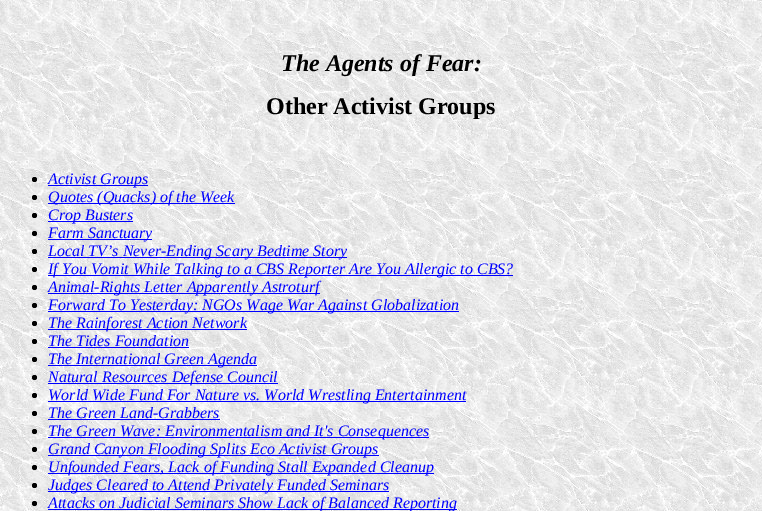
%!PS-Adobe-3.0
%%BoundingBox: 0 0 762 511
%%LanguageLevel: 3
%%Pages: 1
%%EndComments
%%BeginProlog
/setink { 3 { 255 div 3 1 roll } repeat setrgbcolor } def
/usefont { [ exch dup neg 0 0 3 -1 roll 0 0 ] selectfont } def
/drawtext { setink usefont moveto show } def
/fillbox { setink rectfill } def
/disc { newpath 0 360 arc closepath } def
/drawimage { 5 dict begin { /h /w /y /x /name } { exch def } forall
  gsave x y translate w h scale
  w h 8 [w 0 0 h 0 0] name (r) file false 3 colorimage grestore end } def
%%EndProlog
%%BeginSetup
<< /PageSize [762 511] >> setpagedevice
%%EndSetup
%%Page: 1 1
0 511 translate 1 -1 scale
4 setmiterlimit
0 0 762 511 255 255 255 fillbox
(assets/img1.rgb) 0 0 762 511 drawimage
(The Agents of Fear:) 281 71 /LiberationSerif-BoldItalic 24 0 0 0 drawtext
(Other Activist Groups) 266 114 /LiberationSerif-Bold 24 0 0 0 drawtext
34.5 179.5 2.5 disc fill
48 185 100 1 0 0 255 fillbox
(Activist Groups) 48 184 /LiberationSerif-Italic 16 0 0 255 drawtext
0 0 0 setink
34.5 197.5 2.5 disc fill
48 203 187 1 0 0 255 fillbox
(Quotes \(Quacks\) of the Week) 48 202 /LiberationSerif-Italic 16 0 0 255 drawtext
0 0 0 setink
34.5 215.5 2.5 disc fill
48 221 85 1 0 0 255 fillbox
(Crop Busters) 48 220 /LiberationSerif-Italic 16 0 0 255 drawtext
0 0 0 setink
34.5 233.5 2.5 disc fill
48 239 104 1 0 0 255 fillbox
(Farm Sanctuary) 48 238 /LiberationSerif-Italic 16 0 0 255 drawtext
0 0 0 setink
34.5 251.5 2.5 disc fill
48 257 299 1 0 0 255 fillbox
(Local TV’s Never-Ending Scary Bedtime Story) 48 256 /LiberationSerif-Italic 16 0 0 255 drawtext
0 0 0 setink
34.5 269.5 2.5 disc fill
48 275 465 1 0 0 255 fillbox
(If You Vomit While Talking to a CBS Reporter Are You Allergic to CBS?) 48 274 /LiberationSerif-Italic 16 0 0 255 drawtext
0 0 0 setink
34.5 287.5 2.5 disc fill
48 293 272 1 0 0 255 fillbox
(Animal-Rights Letter Apparently Astroturf) 48 292 /LiberationSerif-Italic 16 0 0 255 drawtext
0 0 0 setink
34.5 305.5 2.5 disc fill
48 311 411 1 0 0 255 fillbox
(Forward To Yesterday: NGOs Wage War Against Globalization) 48 310 /LiberationSerif-Italic 16 0 0 255 drawtext
0 0 0 setink
34.5 323.5 2.5 disc fill
48 329 199 1 0 0 255 fillbox
(The Rainforest Action Network) 48 328 /LiberationSerif-Italic 16 0 0 255 drawtext
0 0 0 setink
34.5 341.5 2.5 disc fill
(The Tides Foundation) 48 346 /LiberationSerif-Italic 16 0 0 255 drawtext
48 347 141 1 0 0 255 fillbox
0 0 0 setink
34.5 359.5 2.5 disc fill
48 365 209 1 0 0 255 fillbox
(The International Green Agenda) 48 364 /LiberationSerif-Italic 16 0 0 255 drawtext
0 0 0 setink
34.5 377.5 2.5 disc fill
48 383 230 1 0 0 255 fillbox
(Natural Resources Defense Council) 48 382 /LiberationSerif-Italic 16 0 0 255 drawtext
0 0 0 setink
34.5 395.5 2.5 disc fill
48 401 418 1 0 0 255 fillbox
(World Wide Fund For Nature vs. World Wrestling Entertainment) 48 400 /LiberationSerif-Italic 16 0 0 255 drawtext
0 0 0 setink
34.5 413.5 2.5 disc fill
(The Green Land-Grabbers) 48 418 /LiberationSerif-Italic 16 0 0 255 drawtext
48 419 172 1 0 0 255 fillbox
0 0 0 setink
34.5 431.5 2.5 disc fill
48 437 381 1 0 0 255 fillbox
(The Green Wave: Environmentalism and It's Consequences) 48 436 /LiberationSerif-Italic 16 0 0 255 drawtext
0 0 0 setink
34.5 449.5 2.5 disc fill
48 455 331 1 0 0 255 fillbox
(Grand Canyon Flooding Splits Eco Activist Groups) 48 454 /LiberationSerif-Italic 16 0 0 255 drawtext
0 0 0 setink
34.5 467.5 2.5 disc fill
48 473 386 1 0 0 255 fillbox
(Unfounded Fears, Lack of Funding Stall Expanded Cleanup) 48 472 /LiberationSerif-Italic 16 0 0 255 drawtext
0 0 0 setink
34.5 485.5 2.5 disc fill
48 491 341 1 0 0 255 fillbox
(Judges Cleared to Attend Privately Funded Seminars) 48 490 /LiberationSerif-Italic 16 0 0 255 drawtext
0 0 0 setink
34.5 503.5 2.5 disc fill
48 509 409 1 0 0 255 fillbox
(Attacks on Judicial Seminars Show Lack of Balanced Reporting) 48 508 /LiberationSerif-Italic 16 0 0 255 drawtext
showpage
%%EOF
